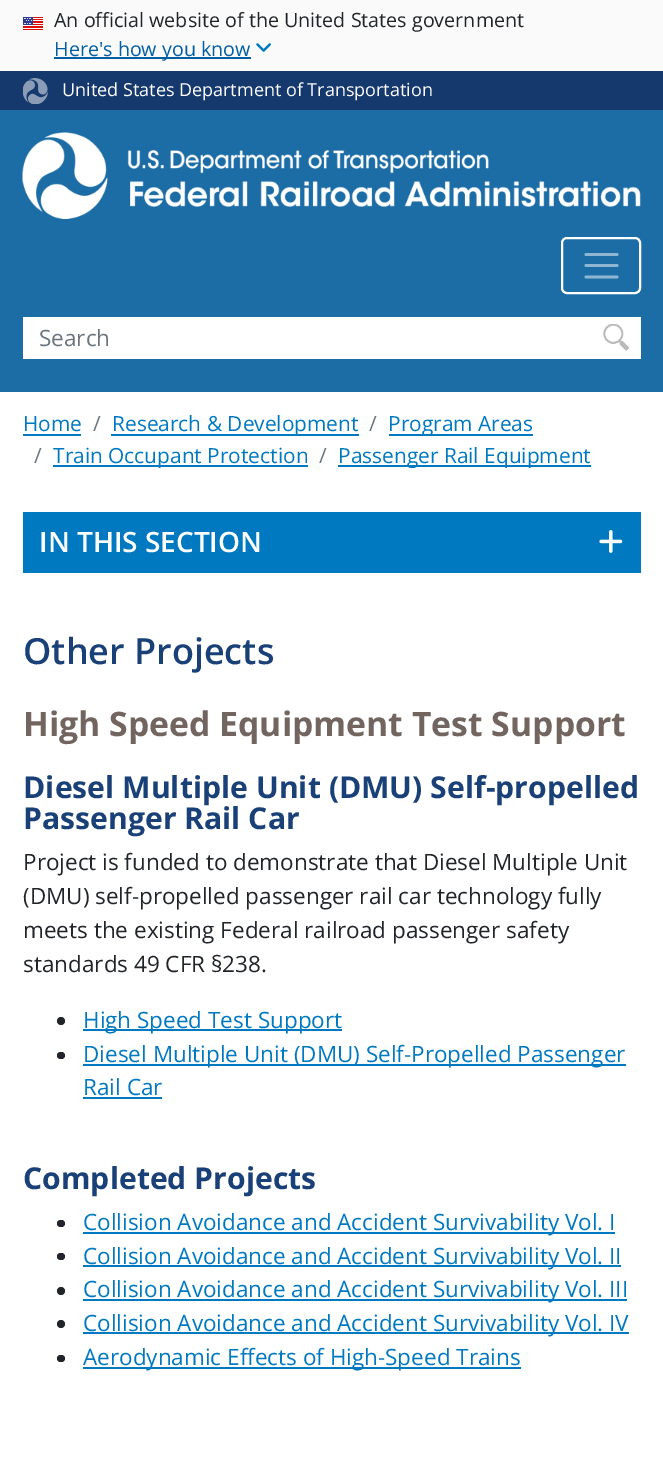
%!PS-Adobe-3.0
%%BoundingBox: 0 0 663 1458
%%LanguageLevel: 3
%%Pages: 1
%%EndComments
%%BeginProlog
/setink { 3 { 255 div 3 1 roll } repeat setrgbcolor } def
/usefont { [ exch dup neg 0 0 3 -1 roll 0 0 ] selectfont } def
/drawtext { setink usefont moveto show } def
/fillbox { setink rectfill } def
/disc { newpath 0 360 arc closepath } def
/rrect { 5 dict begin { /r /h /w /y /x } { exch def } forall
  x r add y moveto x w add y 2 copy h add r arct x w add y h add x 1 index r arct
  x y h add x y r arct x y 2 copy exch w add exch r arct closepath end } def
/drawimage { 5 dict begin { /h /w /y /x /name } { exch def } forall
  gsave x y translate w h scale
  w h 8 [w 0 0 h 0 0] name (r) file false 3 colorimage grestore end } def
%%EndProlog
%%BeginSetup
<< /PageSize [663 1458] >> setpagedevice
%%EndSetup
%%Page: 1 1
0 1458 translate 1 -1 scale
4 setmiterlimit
0 0 663 1458 255 255 255 fillbox
0 0 663 71 250 250 250 fillbox
(assets/img1.rgb) 23 17 20 13 drawimage
(An official website of the United States government) 54 27 /OpenSans-Regular 19.7 33 37 41 drawtext
54 57 197 2 0 94 162 fillbox
(Here's how you know) 54 56 /OpenSans-Regular 19.7 0 94 162 drawtext
(assets/img2.rgb) 256 43 15 9 drawimage
0 71 663 39 21 57 108 fillbox
(assets/img3.rgb) 23 78 25 26 drawimage
(United States Department of Transportation) 62 96 /OpenSans-Regular 18 255 255 255 drawtext
0 110 663 282 28 109 166 fillbox
(assets/img4.rgb) 22 132 619 87 drawimage
255 255 255 setink
2 setlinewidth
562 238 78 55 5 rrect stroke
142 182 211 setink
2.8 setlinewidth
1 setlinecap
586 254.5 moveto 617 254.5 lineto 586 265.5 moveto 617 265.5 lineto 586 277 moveto 617 277 lineto stroke
23 317 618 42 255 255 255 fillbox
(Search) 39 346 /OpenSans-Regular 22.5 108 117 125 drawtext
(assets/img5.rgb) 603 324 27 27 drawimage
(Home) 23 431 /OpenSans-Regular 20.9 0 121 192 drawtext
23 434 58 2 0 121 192 fillbox
(/) 93 431 /OpenSans-Regular 20.9 108 117 125 drawtext
111 434 248 2 0 121 192 fillbox
(Research & Development) 112 431 /OpenSans-Regular 20.9 0 121 192 drawtext
(/) 369 431 /OpenSans-Regular 20.9 108 117 125 drawtext
389 434 144 2 0 121 192 fillbox
(Program Areas) 388 431 /OpenSans-Regular 20.9 0 121 192 drawtext
(/) 34 463 /OpenSans-Regular 20.9 108 117 125 drawtext
53 465 255 2 0 121 192 fillbox
(Train Occupant Protection) 53 463 /OpenSans-Regular 20.9 0 121 192 drawtext
(/) 319 463 /OpenSans-Regular 20.9 108 117 125 drawtext
338 465 253 2 0 121 192 fillbox
(Passenger Rail Equipment) 338 463 /OpenSans-Regular 20.9 0 121 192 drawtext
23 512 618 61 0 121 192 fillbox
(IN THIS SECTION) 39 552 /OpenSans-SemiBold 28 255 255 255 drawtext
(assets/img6.rgb) 599 530 24 23 drawimage
(Other Projects) 23 664 /OpenSans-SemiBold 36 25 65 120 drawtext
(High Speed Equipment Test Support) 23 736 /OpenSans-Bold 33.75 114 101 95 drawtext
(Diesel Multiple Unit \(DMU\) Self-propelled) 23 798 /OpenSans-Bold 30.15 25 65 120 drawtext
(Passenger Rail Car) 23 829 /OpenSans-Bold 30.15 25 65 120 drawtext
(Project is funded to demonstrate that Diesel Multiple Unit) 23 870 /OpenSans-Regular 22.5 33 37 41 drawtext
(\(DMU\) self-propelled passenger rail car technology fully) 23 904 /OpenSans-Regular 22.5 33 37 41 drawtext
(meets the existing Federal railroad passenger safety) 23 938 /OpenSans-Regular 22.5 33 37 41 drawtext
(standards 49 CFR §238.) 23 972 /OpenSans-Regular 22.5 33 37 41 drawtext
61 1021 4 disc fill
83 1029 259 2 0 121 192 fillbox
(High Speed Test Support) 83 1028 /OpenSans-Regular 22.5 0 121 192 drawtext
33 37 41 setink
57 1052 8 7 3.5 rrect fill
83 1064 543 2 0 121 192 fillbox
(Diesel Multiple Unit \(DMU\) Self-Propelled Passenger) 83 1062 /OpenSans-Regular 22.5 0 121 192 drawtext
(Rail Car) 83 1095 /OpenSans-Regular 22.5 0 121 192 drawtext
83 1097 79 2 0 121 192 fillbox
(Completed Projects) 23 1189 /OpenSans-Bold 30.15 25 65 120 drawtext
33 37 41 setink
57 1220 8 7 3.5 rrect fill
83 1232 532 2 0 121 192 fillbox
(Collision Avoidance and Accident Survivability Vol. I) 83 1230 /OpenSans-Regular 22.5 0 121 192 drawtext
33 37 41 setink
57 1253 8 7 3.5 rrect fill
83 1265 538 2 0 121 192 fillbox
(Collision Avoidance and Accident Survivability Vol. II) 83 1264 /OpenSans-Regular 22.5 0 121 192 drawtext
33 37 41 setink
61 1291 4 disc fill
83 1299 544 2 0 121 192 fillbox
(Collision Avoidance and Accident Survivability Vol. III) 83 1297 /OpenSans-Regular 22.5 0 121 192 drawtext
33 37 41 setink
61 1324 4 disc fill
83 1332 546 2 0 121 192 fillbox
(Collision Avoidance and Accident Survivability Vol. IV) 83 1331 /OpenSans-Regular 22.5 0 121 192 drawtext
33 37 41 setink
57 1355 8 7 3.5 rrect fill
83 1367 438 2 0 121 192 fillbox
(Aerodynamic Effects of High-Speed Trains) 83 1365 /OpenSans-Regular 22.5 0 121 192 drawtext
showpage
%%EOF
